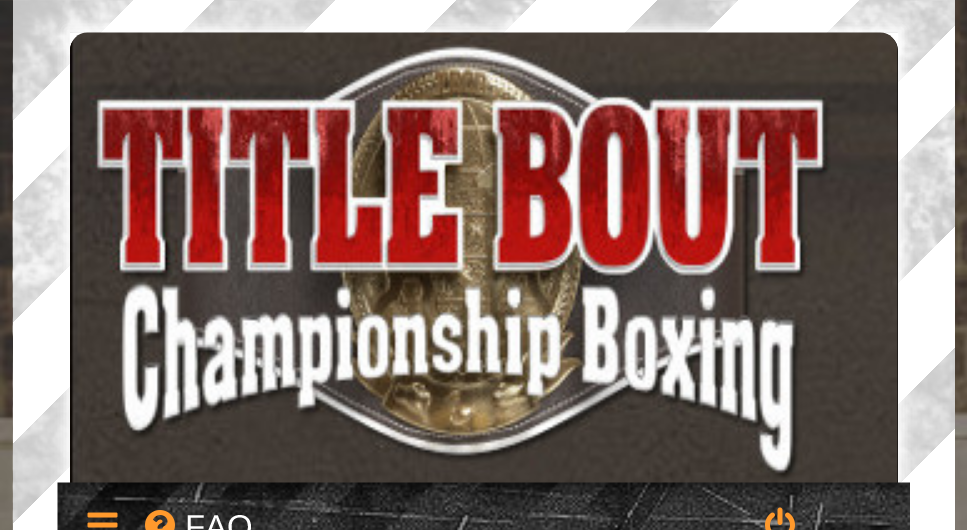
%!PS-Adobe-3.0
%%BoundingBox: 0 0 967 530
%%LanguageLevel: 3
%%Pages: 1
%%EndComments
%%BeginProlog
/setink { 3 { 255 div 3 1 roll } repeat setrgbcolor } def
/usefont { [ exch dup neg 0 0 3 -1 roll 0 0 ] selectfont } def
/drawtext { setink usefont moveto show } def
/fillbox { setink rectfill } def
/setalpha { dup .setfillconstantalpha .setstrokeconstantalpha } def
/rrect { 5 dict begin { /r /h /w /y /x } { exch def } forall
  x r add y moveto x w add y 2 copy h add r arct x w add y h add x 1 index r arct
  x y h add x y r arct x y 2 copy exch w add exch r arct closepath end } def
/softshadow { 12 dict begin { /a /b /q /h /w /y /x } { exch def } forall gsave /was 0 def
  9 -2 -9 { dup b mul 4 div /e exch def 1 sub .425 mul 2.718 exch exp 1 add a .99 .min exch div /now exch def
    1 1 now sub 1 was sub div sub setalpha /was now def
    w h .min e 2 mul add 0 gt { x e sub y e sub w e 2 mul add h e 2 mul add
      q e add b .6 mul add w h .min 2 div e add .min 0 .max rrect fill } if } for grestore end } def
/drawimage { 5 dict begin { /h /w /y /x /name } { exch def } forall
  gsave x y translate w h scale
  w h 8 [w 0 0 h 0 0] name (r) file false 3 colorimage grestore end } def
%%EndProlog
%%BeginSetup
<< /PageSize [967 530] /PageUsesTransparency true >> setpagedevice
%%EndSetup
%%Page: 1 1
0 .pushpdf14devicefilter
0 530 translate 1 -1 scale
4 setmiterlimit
0 0 967 530 255 255 255 fillbox
(assets/img1.rgb) 0 0 967 530 drawimage
gsave 13 0 moveto 955 0 lineto 955 530 lineto 13 530 lineto closepath clip newpath
<< /ShadingType 2 /ColorSpace /DeviceRGB /Coords [-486 499 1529 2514] /Extend [true true] /Function << /FunctionType 3 /Domain [0 1] /Functions [<< /FunctionType 2 /Domain [0 1] /C0 [0.773 0.773 0.773] /C1 [0.773 0.773 0.773] /N 1 >> << /FunctionType 2 /Domain [0 1] /C0 [1 1 1] /C1 [1 1 1] /N 1 >> << /FunctionType 2 /Domain [0 1] /C0 [0.773 0.773 0.773] /C1 [0.773 0.773 0.773] /N 1 >> << /FunctionType 2 /Domain [0 1] /C0 [1 1 1] /C1 [1 1 1] /N 1 >> << /FunctionType 2 /Domain [0 1] /C0 [0.773 0.773 0.773] /C1 [0.773 0.773 0.773] /N 1 >> << /FunctionType 2 /Domain [0 1] /C0 [1 1 1] /C1 [1 1 1] /N 1 >> << /FunctionType 2 /Domain [0 1] /C0 [0.773 0.773 0.773] /C1 [0.773 0.773 0.773] /N 1 >> << /FunctionType 2 /Domain [0 1] /C0 [1 1 1] /C1 [1 1 1] /N 1 >> << /FunctionType 2 /Domain [0 1] /C0 [0.773 0.773 0.773] /C1 [0.773 0.773 0.773] /N 1 >> << /FunctionType 2 /Domain [0 1] /C0 [1 1 1] /C1 [1 1 1] /N 1 >> << /FunctionType 2 /Domain [0 1] /C0 [0.773 0.773 0.773] /C1 [0.773 0.773 0.773] /N 1 >> << /FunctionType 2 /Domain [0 1] /C0 [1 1 1] /C1 [1 1 1] /N 1 >> << /FunctionType 2 /Domain [0 1] /C0 [0.773 0.773 0.773] /C1 [0.773 0.773 0.773] /N 1 >> << /FunctionType 2 /Domain [0 1] /C0 [1 1 1] /C1 [1 1 1] /N 1 >> << /FunctionType 2 /Domain [0 1] /C0 [0.773 0.773 0.773] /C1 [0.773 0.773 0.773] /N 1 >> << /FunctionType 2 /Domain [0 1] /C0 [1 1 1] /C1 [1 1 1] /N 1 >> << /FunctionType 2 /Domain [0 1] /C0 [0.773 0.773 0.773] /C1 [0.773 0.773 0.773] /N 1 >> << /FunctionType 2 /Domain [0 1] /C0 [1 1 1] /C1 [1 1 1] /N 1 >> << /FunctionType 2 /Domain [0 1] /C0 [0.773 0.773 0.773] /C1 [0.773 0.773 0.773] /N 1 >> << /FunctionType 2 /Domain [0 1] /C0 [1 1 1] /C1 [1 1 1] /N 1 >> << /FunctionType 2 /Domain [0 1] /C0 [0.773 0.773 0.773] /C1 [0.773 0.773 0.773] /N 1 >> << /FunctionType 2 /Domain [0 1] /C0 [1 1 1] /C1 [1 1 1] /N 1 >> << /FunctionType 2 /Domain [0 1] /C0 [0.773 0.773 0.773] /C1 [0.773 0.773 0.773] /N 1 >> << /FunctionType 2 /Domain [0 1] /C0 [1 1 1] /C1 [1 1 1] /N 1 >> << /FunctionType 2 /Domain [0 1] /C0 [0.773 0.773 0.773] /C1 [0.773 0.773 0.773] /N 1 >> << /FunctionType 2 /Domain [0 1] /C0 [1 1 1] /C1 [1 1 1] /N 1 >> << /FunctionType 2 /Domain [0 1] /C0 [0.773 0.773 0.773] /C1 [0.773 0.773 0.773] /N 1 >> << /FunctionType 2 /Domain [0 1] /C0 [1 1 1] /C1 [1 1 1] /N 1 >> << /FunctionType 2 /Domain [0 1] /C0 [0.773 0.773 0.773] /C1 [0.773 0.773 0.773] /N 1 >> << /FunctionType 2 /Domain [0 1] /C0 [1 1 1] /C1 [1 1 1] /N 1 >> << /FunctionType 2 /Domain [0 1] /C0 [0.773 0.773 0.773] /C1 [0.773 0.773 0.773] /N 1 >> << /FunctionType 2 /Domain [0 1] /C0 [1 1 1] /C1 [1 1 1] /N 1 >> << /FunctionType 2 /Domain [0 1] /C0 [0.773 0.773 0.773] /C1 [0.773 0.773 0.773] /N 1 >> << /FunctionType 2 /Domain [0 1] /C0 [1 1 1] /C1 [1 1 1] /N 1 >> << /FunctionType 2 /Domain [0 1] /C0 [0.773 0.773 0.773] /C1 [0.773 0.773 0.773] /N 1 >> << /FunctionType 2 /Domain [0 1] /C0 [1 1 1] /C1 [1 1 1] /N 1 >> << /FunctionType 2 /Domain [0 1] /C0 [0.773 0.773 0.773] /C1 [0.773 0.773 0.773] /N 1 >> << /FunctionType 2 /Domain [0 1] /C0 [1 1 1] /C1 [1 1 1] /N 1 >>] /Bounds [0.03 0.05 0.08 0.11 0.13 0.16 0.18 0.21 0.24 0.26 0.29 0.32 0.34 0.37 0.39 0.42 0.45 0.47 0.5 0.53 0.55 0.58 0.61 0.63 0.66 0.68 0.71 0.74 0.76 0.79 0.82 0.84 0.87 0.89 0.92 0.95 0.97] /Encode [0 1 0 1 0 1 0 1 0 1 0 1 0 1 0 1 0 1 0 1 0 1 0 1 0 1 0 1 0 1 0 1 0 1 0 1 0 1 0 1 0 1 0 1 0 1 0 1 0 1 0 1 0 1 0 1 0 1 0 1 0 1 0 1 0 1 0 1 0 1 0 1 0 1 0 1] >> >> shfill grestore
(assets/img2.rgb) 12 0 943 530 drawimage
65 28 838 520 0 6 1 softshadow
70 33 828 18 255 255 255 fillbox
0 0 0 setink
88 33 moveto 880 33 lineto 890 33 898 41 898 51 curveto 898 495 lineto 70 495 lineto 70 51 lineto 70 41 78 33 88 33 curveto closepath fill
(assets/img3.rgb) 70 32 828 451 drawimage
(assets/img4.rgb) 57 482 853 48 drawimage
(assets/img5.rgb) 87 512 31 16 drawimage
(assets/img6.rgb) 145 510 30 20 drawimage
(FAQ) 185 538 /LiberationSans-Regular 33 255 255 255 drawtext
(assets/img7.rgb) 765 507 30 23 drawimage
.poppdf14devicefilter showpage
%%EOF
